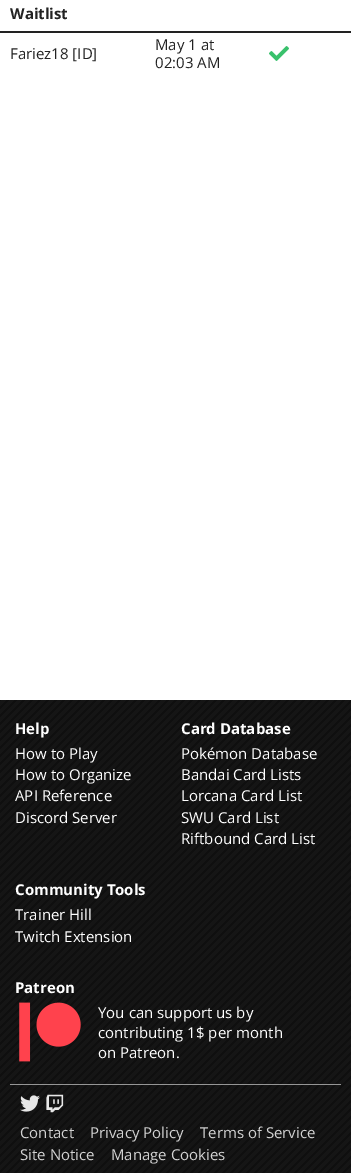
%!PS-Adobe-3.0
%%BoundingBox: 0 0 351 1173
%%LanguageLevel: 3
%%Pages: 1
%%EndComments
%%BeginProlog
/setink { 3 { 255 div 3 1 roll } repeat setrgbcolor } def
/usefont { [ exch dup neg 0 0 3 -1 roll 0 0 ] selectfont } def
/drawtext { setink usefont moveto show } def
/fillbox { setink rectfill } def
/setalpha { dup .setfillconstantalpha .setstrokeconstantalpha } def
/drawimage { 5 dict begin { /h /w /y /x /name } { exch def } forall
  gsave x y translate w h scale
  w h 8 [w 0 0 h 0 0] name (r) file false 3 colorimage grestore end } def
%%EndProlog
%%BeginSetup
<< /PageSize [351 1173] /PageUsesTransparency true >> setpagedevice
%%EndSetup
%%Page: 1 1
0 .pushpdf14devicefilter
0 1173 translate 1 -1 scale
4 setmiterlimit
0 0 351 1173 255 255 255 fillbox
0 31 351 2 34 34 34 fillbox
(Waitlist) 10 19 /OpenSans-Bold 15 34 34 34 drawtext
(Fariez18 [ID]) 10 59 /OpenSans-Regular 15 34 34 34 drawtext
(May 1 at) 155 50 /OpenSans-Regular 15 34 34 34 drawtext
(02:03 AM) 155 68 /OpenSans-Regular 15 34 34 34 drawtext
(assets/img1.rgb) 269 46 20 15 drawimage
(assets/img2.rgb) 0 700 351 473 drawimage
(Help) 15 734 /OpenSans-Bold 15 255 255 255 drawtext
(How to Play) 15 759 /OpenSans-Regular 15 255 255 255 drawtext
(How to Organize) 15 780 /OpenSans-Regular 15 255 255 255 drawtext
(API Reference) 15 801 /OpenSans-Regular 15 255 255 255 drawtext
(Discord Server) 15 823 /OpenSans-Regular 15 255 255 255 drawtext
(Card Database) 181 734 /OpenSans-Bold 15 255 255 255 drawtext
(Pokémon Database) 181 759 /OpenSans-Regular 15 255 255 255 drawtext
(Bandai Card Lists) 181 780 /OpenSans-Regular 15 255 255 255 drawtext
(Lorcana Card List) 181 801 /OpenSans-Regular 15 255 255 255 drawtext
(SWU Card List) 181 823 /OpenSans-Regular 15 255 255 255 drawtext
(Riftbound Card List) 181 844 /OpenSans-Regular 15 255 255 255 drawtext
(Community Tools) 15 895 /OpenSans-Bold 15 255 255 255 drawtext
(Trainer Hill) 15 920 /OpenSans-Regular 15 255 255 255 drawtext
(Twitch Extension) 15 942 /OpenSans-Regular 15 255 255 255 drawtext
(Patreon) 15 993 /OpenSans-Bold 15 255 255 255 drawtext
(assets/img3.rgb) 19 1002 62 60 drawimage
(You can support us by) 98 1018 /OpenSans-Regular 15 255 255 255 drawtext
(contributing 1$ per month) 98 1038 /OpenSans-Regular 15 255 255 255 drawtext
(on Patreon.) 98 1058 /OpenSans-Regular 15 255 255 255 drawtext
0.68 setalpha
10 1084 331 1 211 211 211 fillbox
1 setalpha
(assets/img4.rgb) 20 1095 20 17 drawimage
(assets/img5.rgb) 46 1094 18 19 drawimage
(Contact) 20 1138 /OpenSans-Regular 15 210 210 210 drawtext
(Privacy Policy) 90 1138 /OpenSans-Regular 15 210 210 210 drawtext
(Terms of Service) 200 1138 /OpenSans-Regular 15 210 210 210 drawtext
(Site Notice) 20 1160 /OpenSans-Regular 15 210 210 210 drawtext
(Manage Cookies) 111 1160 /OpenSans-Regular 15 210 210 210 drawtext
.poppdf14devicefilter showpage
%%EOF
